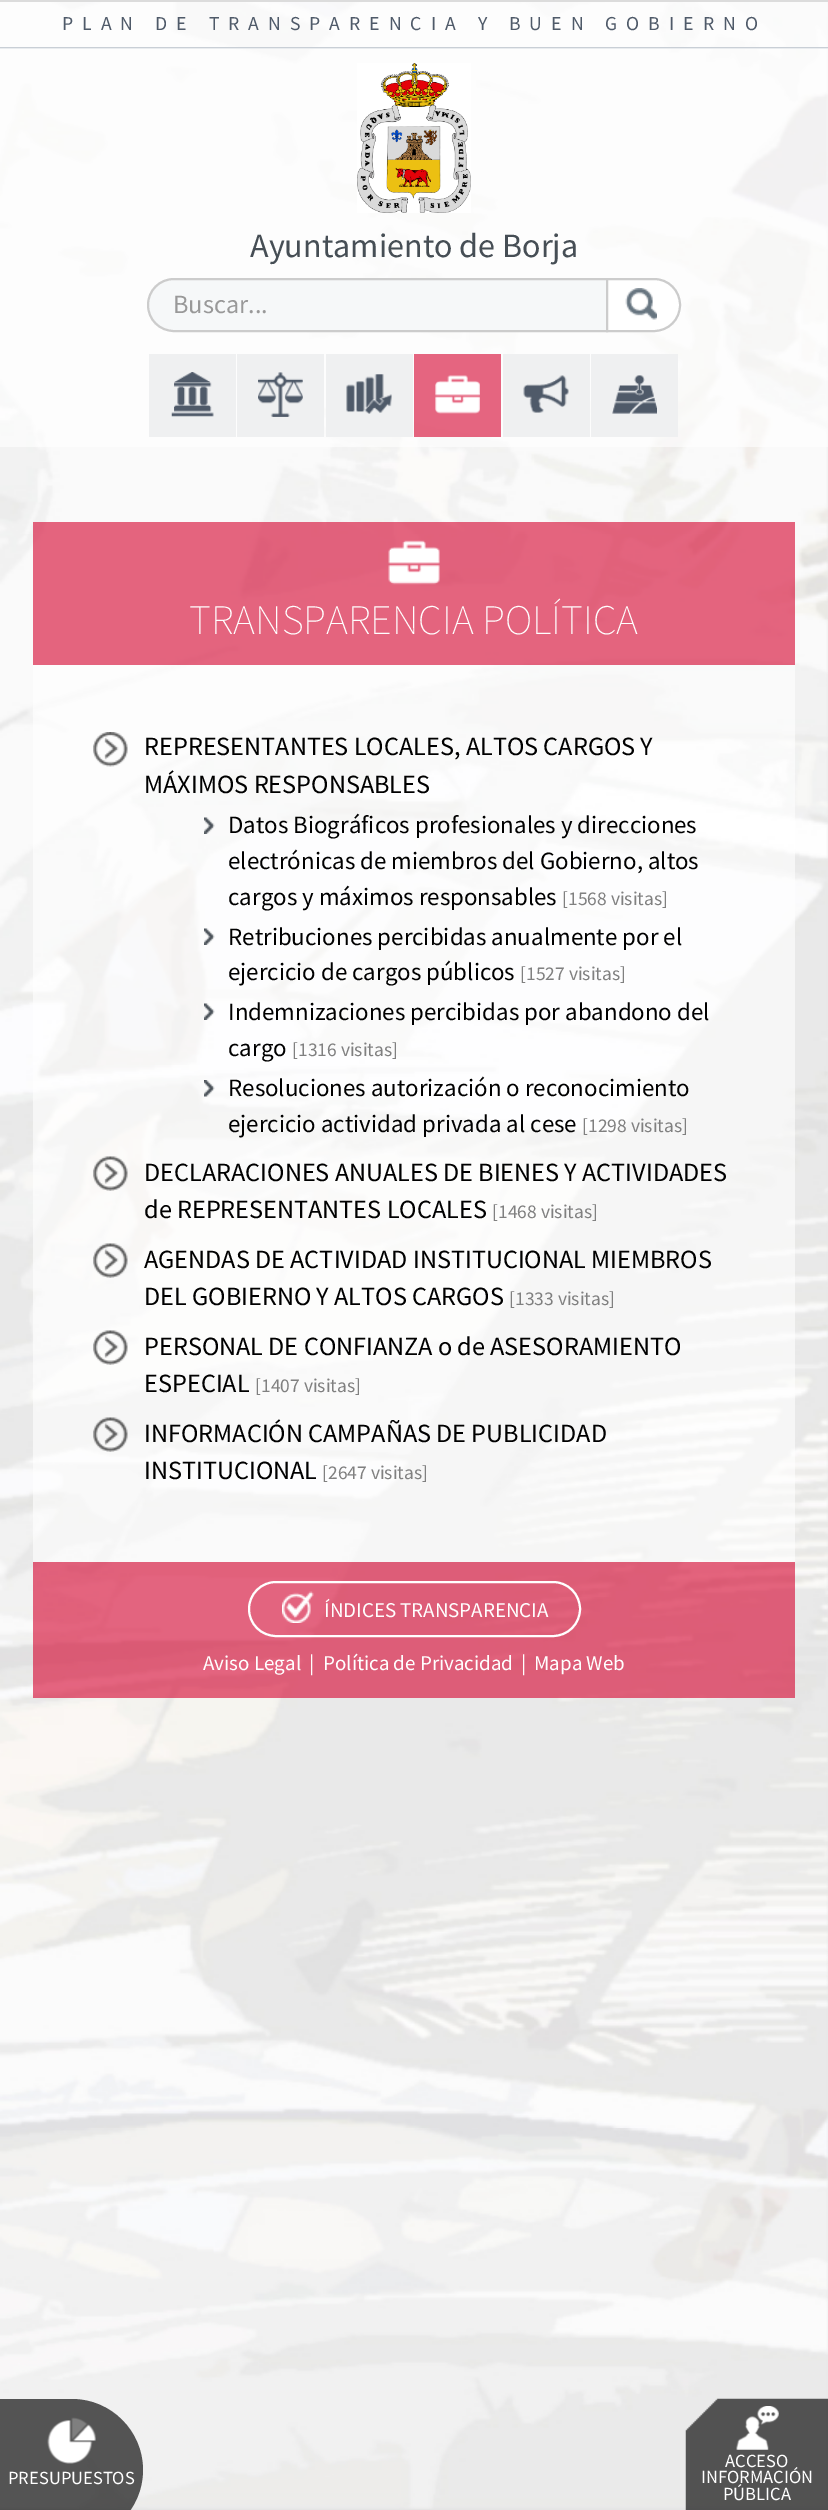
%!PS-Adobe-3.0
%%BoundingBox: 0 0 828 2510
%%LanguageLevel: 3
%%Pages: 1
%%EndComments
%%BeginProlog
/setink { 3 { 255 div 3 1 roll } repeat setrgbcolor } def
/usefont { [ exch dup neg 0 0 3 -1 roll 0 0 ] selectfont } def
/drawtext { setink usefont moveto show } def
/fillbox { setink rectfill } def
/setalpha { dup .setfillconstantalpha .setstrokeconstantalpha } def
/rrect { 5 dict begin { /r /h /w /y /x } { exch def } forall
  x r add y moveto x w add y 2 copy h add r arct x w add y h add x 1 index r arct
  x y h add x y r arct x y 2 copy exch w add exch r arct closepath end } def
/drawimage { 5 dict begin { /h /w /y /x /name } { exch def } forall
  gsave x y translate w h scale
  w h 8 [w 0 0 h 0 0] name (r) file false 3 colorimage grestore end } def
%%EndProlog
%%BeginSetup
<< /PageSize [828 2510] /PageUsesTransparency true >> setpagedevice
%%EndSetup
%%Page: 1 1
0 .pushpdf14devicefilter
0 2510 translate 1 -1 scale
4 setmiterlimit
0 0 828 2510 229 229 229 fillbox
(assets/img1.rgb) 0 2 828 2507 drawimage
0 0 828 2 220 220 220 fillbox
0.6 setalpha
0 2 828 45 255 255 255 fillbox
1 setalpha
0 47 828 2 201 207 214 fillbox
/SourceSansPro-Regular 19.7 usefont
79 90 105 setink
62 30 moveto 9 0 (PLAN DE TRANSPARENCIA Y BUEN GOBIERNO) ashow
0.6 setalpha
0 48 828 306 255 255 255 fillbox
1 setalpha
(assets/img2.rgb) 357 63 114 150 drawimage
(Ayuntamiento de Borja) 250 257 /SourceSansPro-Regular 34.1 70 78 85 drawtext
246 248 249 setink
174 279 moveto 607 279 lineto 607 331 lineto 174 331 lineto 159.5 331 148 319.5 148 305 curveto 148 290.5 159.5 279 174 279 curveto closepath gsave fill grestore
204 204 204 setink
2 setlinewidth
stroke
(Buscar...) 173 313 /SourceSansPro-Regular 26.25 153 153 153 drawtext
255 255 255 setink
607 279 moveto 654 279 lineto 668.5 279 680 290.5 680 305 curveto 680 319.5 668.5 331 654 331 curveto 607 331 lineto closepath gsave fill grestore
204 204 204 setink
stroke
(assets/img3.rgb) 625 288 32 32 drawimage
0.6 setalpha
0 354 828 93 255 255 255 fillbox
1 setalpha
149 354 87 83 239 240 241 fillbox
(assets/img4.rgb) 171 372 43 45 drawimage
237 354 87 83 239 240 241 fillbox
(assets/img5.rgb) 258 372 45 45 drawimage
326 354 87 83 239 240 241 fillbox
(assets/img6.rgb) 346 374 46 40 drawimage
0.6 setalpha
414 354 87 83 213 0 44 fillbox
1 setalpha
(assets/img7.rgb) 435 375 45 39 drawimage
503 354 87 83 239 240 241 fillbox
(assets/img8.rgb) 523 375 46 38 drawimage
591 354 87 83 239 240 241 fillbox
(assets/img9.rgb) 612 375 45 39 drawimage
0.6 setalpha
33 522 762 143 213 0 44 fillbox
1 setalpha
(assets/img10.rgb) 388 540 52 45 drawimage
(TRANSPARENCIA POLÍTICA) 189 634 /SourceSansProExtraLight-ExtraLight 42 255 255 255 drawtext
0.6 setalpha
33 665 762 897 255 255 255 fillbox
1 setalpha
(assets/img11.rgb) 93 732 35 35 drawimage
(REPRESENTANTES LOCALES, ALTOS CARGOS Y) 144 755 /SourceSansPro-Regular 26.25 0 0 0 drawtext
(MÁXIMOS RESPONSABLES) 144 793 /SourceSansPro-Regular 26.25 0 0 0 drawtext
(assets/img12.rgb) 204 817 11 17 drawimage
(Datos Biográficos profesionales y direcciones) 228 833 /SourceSansPro-Regular 24.9 0 0 0 drawtext
(electrónicas de miembros del Gobierno, altos) 228 869 /SourceSansPro-Regular 24.9 0 0 0 drawtext
(cargos y máximos responsables) 228 905 /SourceSansPro-Regular 24.9 0 0 0 drawtext
([1568 visitas]) 562 905 /SourceSansPro-Regular 19.5 128 128 128 drawtext
(assets/img13.rgb) 204 928 11 17 drawimage
(Retribuciones percibidas anualmente por el) 228 945 /SourceSansPro-Regular 24.9 0 0 0 drawtext
(ejercicio de cargos públicos) 228 980 /SourceSansPro-Regular 24.9 0 0 0 drawtext
([1527 visitas]) 520 980 /SourceSansPro-Regular 19.5 128 128 128 drawtext
(assets/img14.rgb) 204 1003 11 17 drawimage
(Indemnizaciones percibidas por abandono del) 228 1020 /SourceSansPro-Regular 24.9 0 0 0 drawtext
(cargo) 228 1056 /SourceSansPro-Regular 24.9 0 0 0 drawtext
([1316 visitas]) 292 1056 /SourceSansPro-Regular 19.5 128 128 128 drawtext
(assets/img15.rgb) 204 1080 11 17 drawimage
(Resoluciones autorización o reconocimiento) 228 1096 /SourceSansPro-Regular 24.9 0 0 0 drawtext
(ejercicio actividad privada al cese) 228 1132 /SourceSansPro-Regular 24.9 0 0 0 drawtext
([1298 visitas]) 582 1132 /SourceSansPro-Regular 19.5 128 128 128 drawtext
(assets/img16.rgb) 93 1156 35 35 drawimage
(DECLARACIONES ANUALES DE BIENES Y ACTIVIDADES) 144 1181 /SourceSansPro-Regular 26.25 0 0 0 drawtext
(de REPRESENTANTES LOCALES) 144 1218 /SourceSansPro-Regular 26.25 0 0 0 drawtext
([1468 visitas]) 492 1218 /SourceSansPro-Regular 19.5 128 128 128 drawtext
(assets/img17.rgb) 93 1243 35 35 drawimage
(AGENDAS DE ACTIVIDAD INSTITUCIONAL MIEMBROS) 144 1268 /SourceSansPro-Regular 26.25 0 0 0 drawtext
(DEL GOBIERNO Y ALTOS CARGOS) 144 1305 /SourceSansPro-Regular 26.25 0 0 0 drawtext
([1333 visitas]) 509 1305 /SourceSansPro-Regular 19.5 128 128 128 drawtext
(assets/img18.rgb) 93 1330 35 35 drawimage
(PERSONAL DE CONFIANZA o de ASESORAMIENTO) 144 1355 /SourceSansPro-Regular 26.25 0 0 0 drawtext
(ESPECIAL) 144 1392 /SourceSansPro-Regular 26.25 0 0 0 drawtext
([1407 visitas]) 255 1392 /SourceSansPro-Regular 19.5 128 128 128 drawtext
(assets/img19.rgb) 93 1417 35 35 drawimage
(INFORMACIÓN CAMPAÑAS DE PUBLICIDAD) 144 1442 /SourceSansPro-Regular 26.25 0 0 0 drawtext
(INSTITUCIONAL) 144 1479 /SourceSansPro-Regular 26.25 0 0 0 drawtext
([2647 visitas]) 322 1479 /SourceSansPro-Regular 19.5 128 128 128 drawtext
0.6 setalpha
33 1562 762 136 213 0 44 fillbox
1 setalpha
(assets/img20.rgb) 282 1591 32 32 drawimage
255 255 255 setink
249 1582 331 54 27 rrect stroke
(ÍNDICES TRANSPARENCIA) 324 1617 /SourceSansPro-Regular 21 255 255 255 drawtext
(Aviso Legal) 203 1670 /SourceSansPro-Regular 21 255 255 255 drawtext
(|) 309 1670 /SourceSansPro-Regular 21 255 255 255 drawtext
(Política de Privacidad) 323 1670 /SourceSansPro-Regular 21 255 255 255 drawtext
(|) 521 1670 /SourceSansPro-Regular 21 255 255 255 drawtext
(Mapa Web) 534 1670 /SourceSansPro-Regular 21 255 255 255 drawtext
0.65 setalpha
0 0 0 setink
0 2399 moveto 72 2399 lineto 111 2399 143 2431 143 2470 curveto 143 2509 111 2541 72 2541 curveto 0 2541 lineto closepath fill
1 setalpha
(assets/img21.rgb) 47 2417 49 47 drawimage
(PRESUPUESTOS) 8 2484 /SourceSansPro-Regular 18.5 255 255 255 drawtext
(assets/img22.rgb) 685 2398 143 112 drawimage
(assets/img23.rgb) 736 2406 43 44 drawimage
(ACCESO) 725 2467 /SourceSansPro-Regular 18.5 255 255 255 drawtext
(INFORMACIÓN) 701 2483 /SourceSansPro-Regular 18.5 255 255 255 drawtext
(PÚBLICA) 723 2500 /SourceSansPro-Regular 18.5 255 255 255 drawtext
.poppdf14devicefilter showpage
%%EOF
